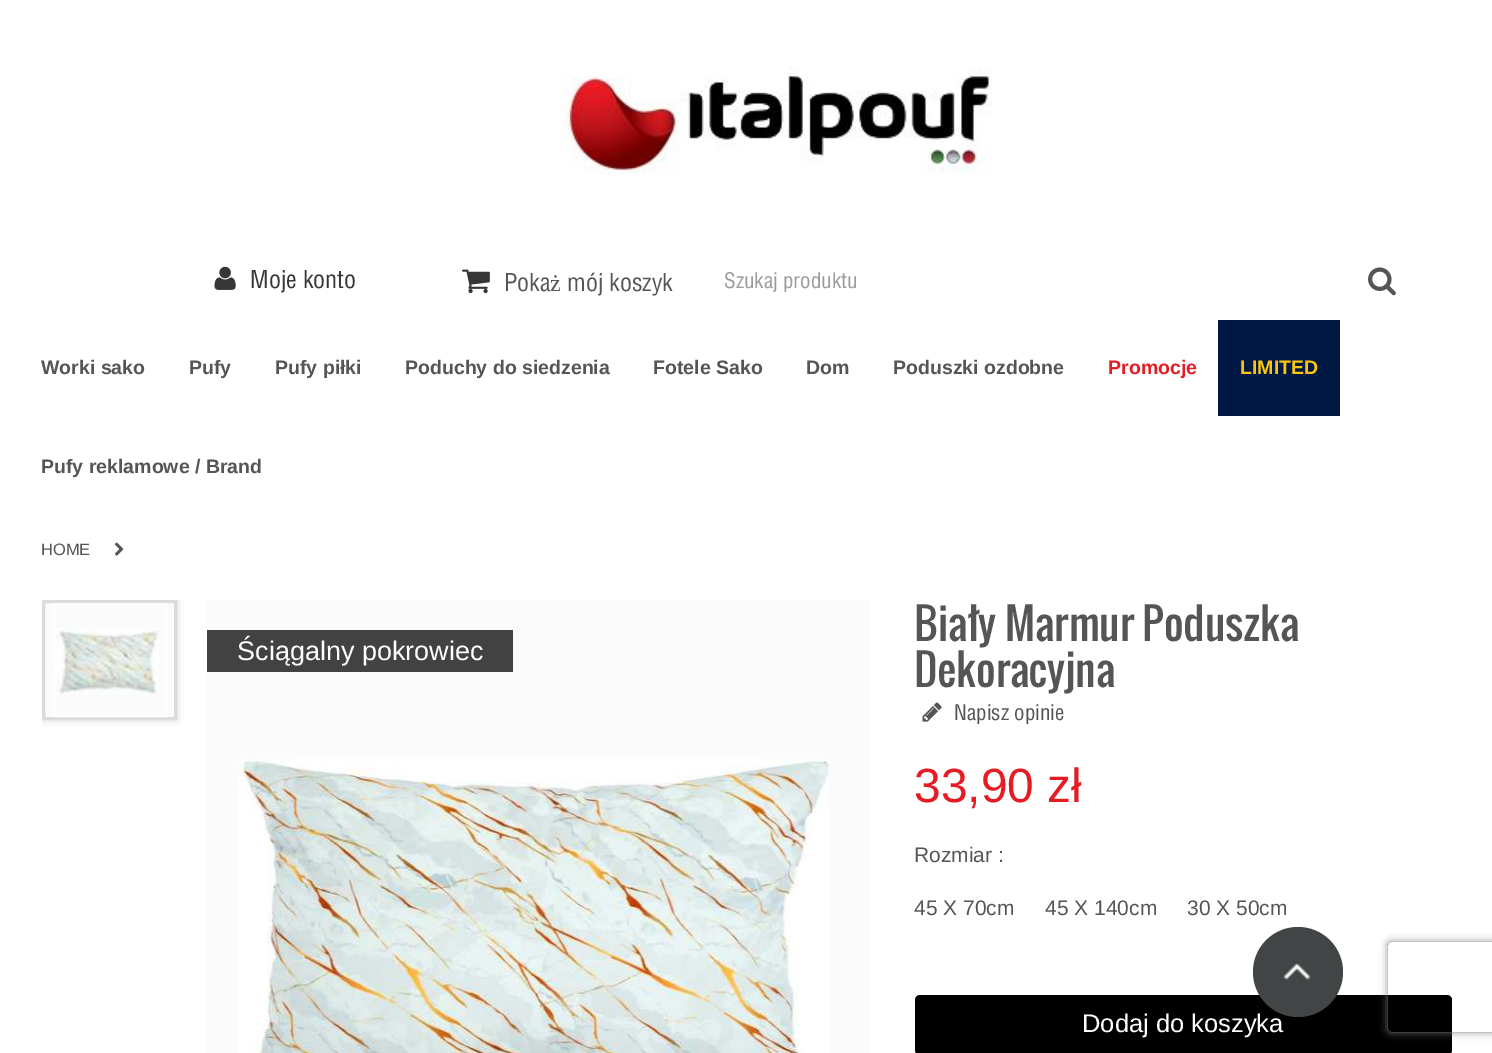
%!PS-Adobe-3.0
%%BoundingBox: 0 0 1492 1053
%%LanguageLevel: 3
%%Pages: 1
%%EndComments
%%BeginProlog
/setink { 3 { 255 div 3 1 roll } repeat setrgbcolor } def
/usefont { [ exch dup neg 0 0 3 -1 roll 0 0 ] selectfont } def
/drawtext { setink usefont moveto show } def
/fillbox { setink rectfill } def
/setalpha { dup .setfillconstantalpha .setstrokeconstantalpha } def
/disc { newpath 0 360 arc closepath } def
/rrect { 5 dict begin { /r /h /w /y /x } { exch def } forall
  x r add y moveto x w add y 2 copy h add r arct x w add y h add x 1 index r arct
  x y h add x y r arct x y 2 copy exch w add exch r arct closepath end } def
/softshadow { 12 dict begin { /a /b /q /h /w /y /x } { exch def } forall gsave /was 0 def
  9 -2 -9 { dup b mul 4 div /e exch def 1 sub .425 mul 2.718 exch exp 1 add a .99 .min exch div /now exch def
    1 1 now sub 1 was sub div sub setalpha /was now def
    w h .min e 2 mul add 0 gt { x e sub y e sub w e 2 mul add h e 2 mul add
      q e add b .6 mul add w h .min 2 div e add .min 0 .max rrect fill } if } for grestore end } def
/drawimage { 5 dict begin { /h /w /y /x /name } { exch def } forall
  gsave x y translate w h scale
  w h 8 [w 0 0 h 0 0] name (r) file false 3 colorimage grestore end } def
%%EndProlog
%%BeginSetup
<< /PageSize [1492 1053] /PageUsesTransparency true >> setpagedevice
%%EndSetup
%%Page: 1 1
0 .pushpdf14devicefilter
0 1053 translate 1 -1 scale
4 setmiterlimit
0 0 1492 1053 255 255 255 fillbox
(assets/img1.rgb) 559 66 433 109 drawimage
(assets/img2.rgb) 214 266 22 24 drawimage
(Moje konto) 250 288 /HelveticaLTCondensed-Medium 24 55 53 54 drawtext
(assets/img3.rgb) 462 269 28 25 drawimage
(Poka) 504 291 /HelveticaLTCondensed-Medium 24 85 85 85 drawtext
(ż) 550 291 /LiberationSerif-Regular 24 85 85 85 drawtext
(mój koszyk) 567 291 /HelveticaLTCondensed-Medium 24 85 85 85 drawtext
(Szukaj produktu) 724 288 /HelveticaLTCondensed-Medium 21 156 155 155 drawtext
(assets/img4.rgb) 1368 267 28 29 drawimage
(Worki sako) 41 374 /LiberationSans-Bold 19.5 85 85 85 drawtext
(Pufy) 189 374 /LiberationSans-Bold 19.5 85 85 85 drawtext
(Pufy piłki) 275 374 /LiberationSans-Bold 19.5 85 85 85 drawtext
(Poduchy do siedzenia) 405 374 /LiberationSans-Bold 19.5 85 85 85 drawtext
(Fotele Sako) 653 374 /LiberationSans-Bold 19.5 85 85 85 drawtext
(Dom) 806 374 /LiberationSans-Bold 19.5 85 85 85 drawtext
(Poduszki ozdobne) 893 374 /LiberationSans-Bold 19.5 85 85 85 drawtext
(Promocje) 1108 374 /LiberationSans-Bold 19.5 231 27 35 drawtext
1218 320 122 96 0 24 68 fillbox
(LIMITED) 1240 374 /LiberationSans-Bold 19.5 253 198 11 drawtext
(Pufy reklamowe / Brand) 41 473 /LiberationSans-Bold 19.5 85 85 85 drawtext
(HOME) 41 555 /LiberationSans-Regular 16.5 85 85 85 drawtext
(assets/img5.rgb) 115 542 9 14 drawimage
gsave
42 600 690 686 rectclip
212 215 217 setink
42 600 135 120 0 4 1 softshadow
grestore
251 251 251 setink
43.5 601.5 moveto 175.5 601.5 lineto 175.5 718.5 lineto 43.5 718.5 lineto closepath gsave fill grestore
219 219 219 setink
3 setlinewidth
stroke
255 255 255 setink
2 setlinewidth
54 604 112 112 rectstroke
(assets/img6.rgb) 54 628 105 66 drawimage
207 600 663 453 251 251 251 fillbox
207 630 306 42 66 66 66 fillbox
(Ściągalny pokrowiec) 237 660 /LiberationSans-Regular 27 255 255 255 drawtext
(assets/img7.rgb) 238 759 591 294 drawimage
(Biały Marmur Poduszka) 914 641 /Oswald-Regular 42 85 85 85 drawtext
(Dekoracyjna) 914 687 /Oswald-Regular 42 85 85 85 drawtext
(assets/img8.rgb) 922 702 20 20 drawimage
(Napisz opinie) 954 720 /HelveticaLTCondensed-Medium 21 85 85 85 drawtext
(33,90 zł) 914 802 /LiberationSans-Regular 48 231 27 35 drawtext
(Rozmiar :) 914 862 /LiberationSans-Regular 21 85 85 85 drawtext
(45 X 70cm) 914 915 /LiberationSans-Regular 21 85 85 85 drawtext
(45 X 140cm) 1045 915 /LiberationSans-Regular 21 85 85 85 drawtext
(30 X 50cm) 1187 915 /LiberationSans-Regular 21 85 85 85 drawtext
0 0 0 setink
915 995 537 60 5 rrect fill
(Dodaj do koszyka) 1082 1032 /LiberationSans-Regular 25.5 255 255 255 drawtext
66 69 70 setink
1298 972 45 disc fill
(assets/img9.rgb) 1283 963 28 17 drawimage
gsave
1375 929 moveto 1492 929 lineto 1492 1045 lineto 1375 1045 lineto closepath 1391 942 moveto 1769 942 lineto 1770.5 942 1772 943.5 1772 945 curveto 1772 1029 lineto 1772 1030.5 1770.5 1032 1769 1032 curveto 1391 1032 lineto 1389.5 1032 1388 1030.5 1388 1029 curveto 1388 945 lineto 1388 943.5 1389.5 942 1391 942 curveto closepath eoclip newpath
128 128 128 setink
1388 942 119 90 3 4 1 softshadow
grestore
.poppdf14devicefilter showpage
%%EOF
